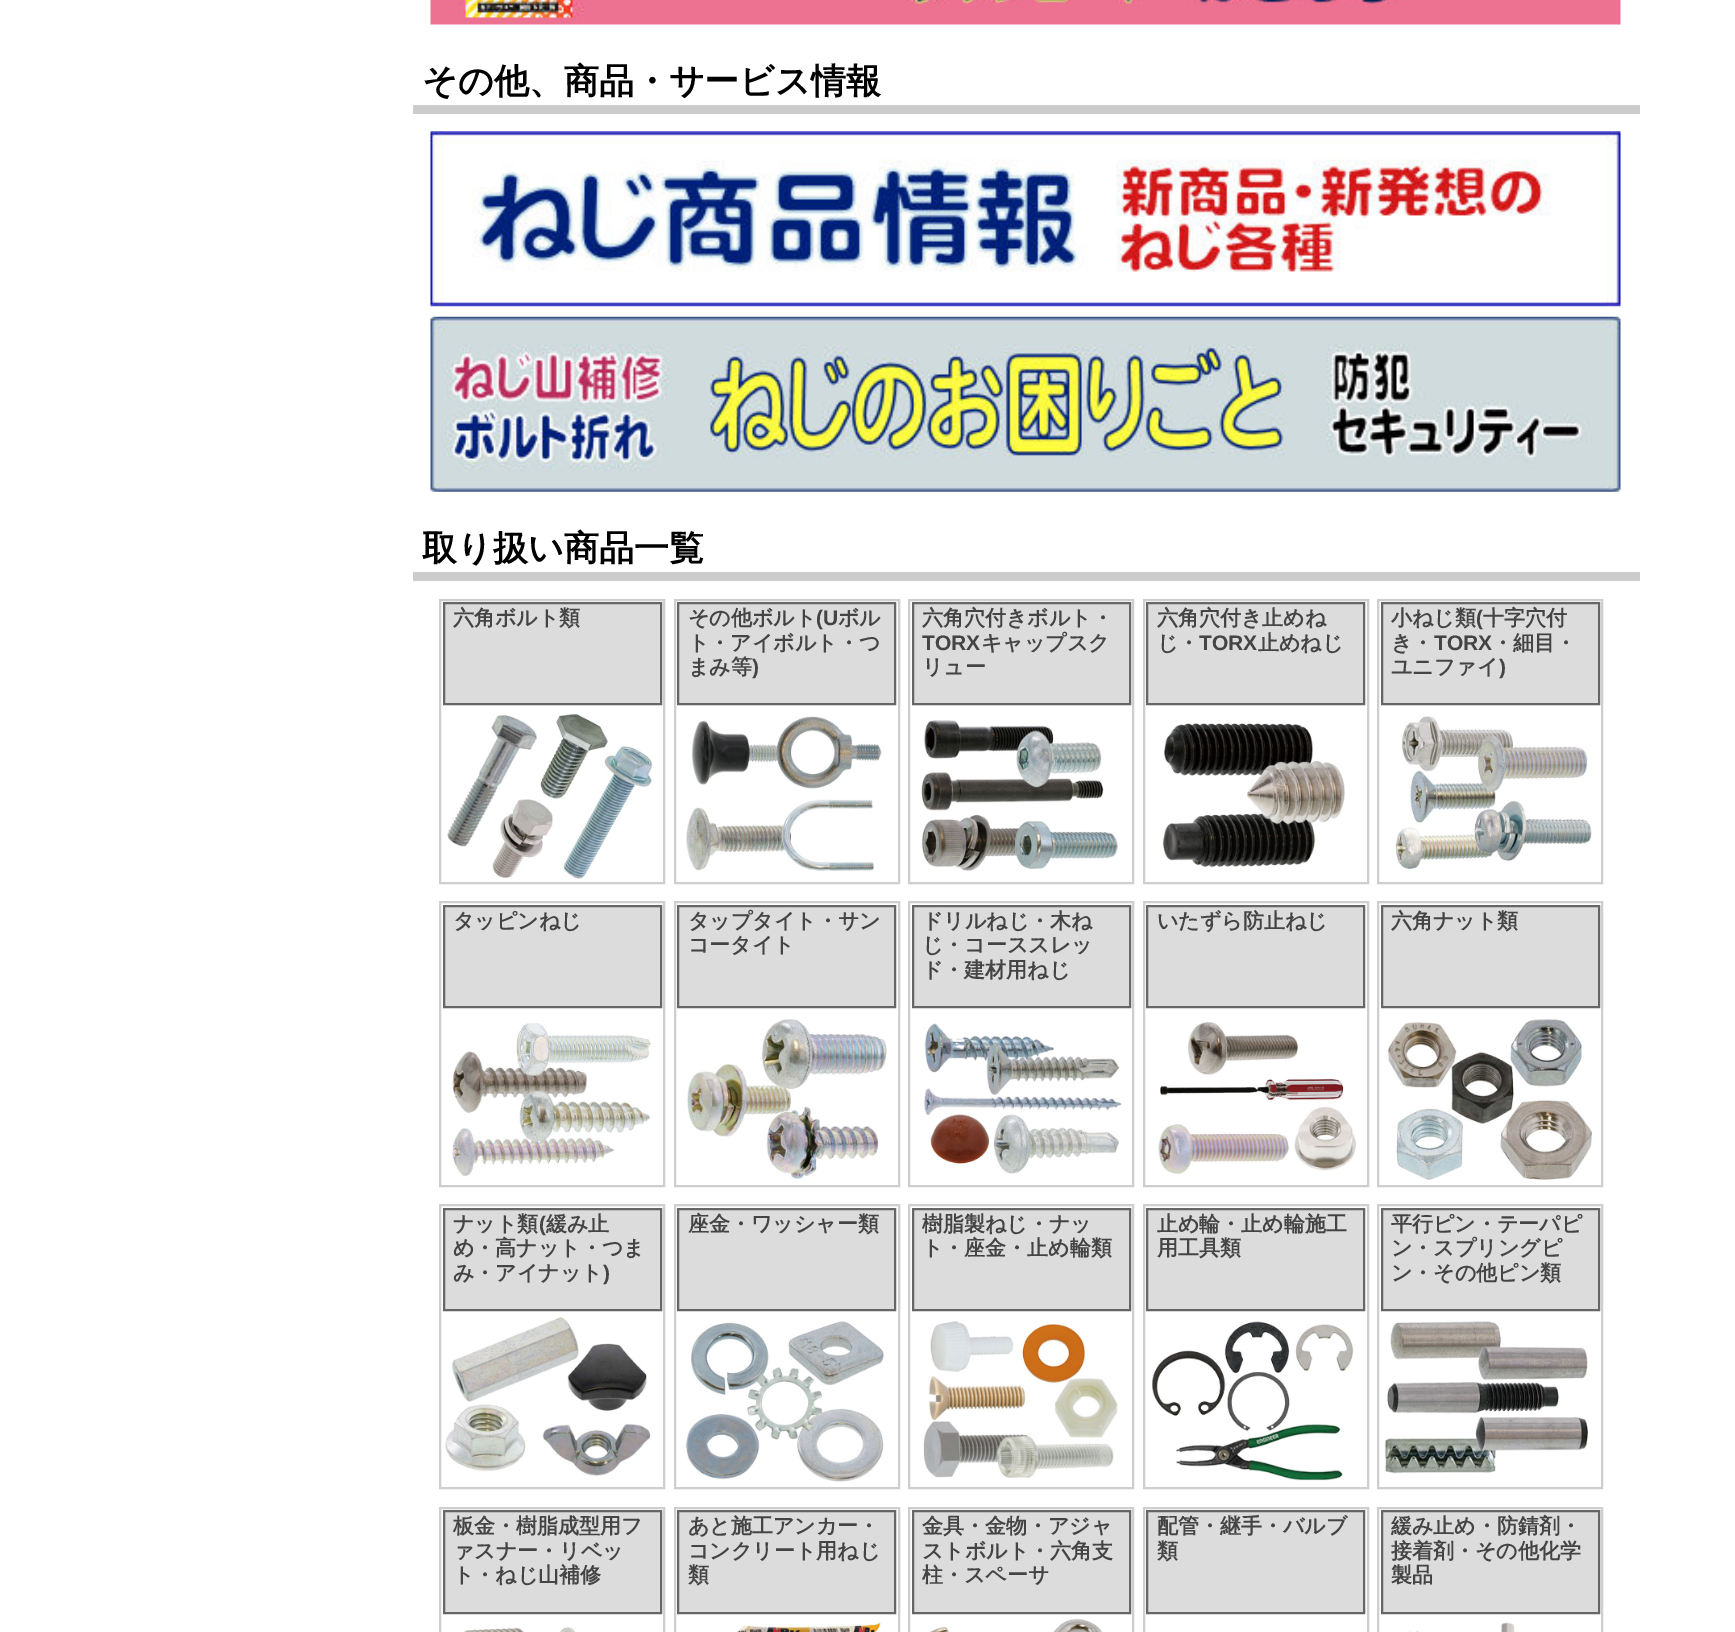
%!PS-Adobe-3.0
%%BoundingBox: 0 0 1735 1632
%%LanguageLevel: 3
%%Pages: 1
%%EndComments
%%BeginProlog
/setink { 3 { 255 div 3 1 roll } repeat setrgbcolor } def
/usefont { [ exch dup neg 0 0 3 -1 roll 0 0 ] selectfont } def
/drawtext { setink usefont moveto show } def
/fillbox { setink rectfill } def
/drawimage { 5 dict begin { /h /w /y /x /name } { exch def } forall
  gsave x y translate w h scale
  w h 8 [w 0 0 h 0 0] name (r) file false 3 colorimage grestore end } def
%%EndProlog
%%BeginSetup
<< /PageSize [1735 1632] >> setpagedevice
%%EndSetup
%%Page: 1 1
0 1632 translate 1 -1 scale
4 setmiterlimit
0 0 1735 1632 255 255 255 fillbox
(assets/img1.rgb) 430 0 1191 25 drawimage
413 105 1227 9 204 204 204 fillbox
(その他、商品・サービス情報) 422 93 /WenQuanYiZenHei-Bold 35 0 0 0 drawtext
(assets/img2.rgb) 430 131 1191 176 drawimage
(assets/img3.rgb) 430 316 1191 176 drawimage
413 572 1227 9 204 204 204 fillbox
(取り扱い商品一覧) 422 560 /WenQuanYiZenHei-Bold 35 0 0 0 drawtext
206 206 206 setink
2 setlinewidth
440 600 224 283 rectstroke
220 220 220 setink
444 603 moveto 661 603 lineto 661 704 lineto 444 704 lineto closepath gsave fill grestore
102 102 102 setink
stroke
(六角ボルト類) 453 625 /WenQuanYiZenHei-Bold 21 68 68 68 drawtext
(assets/img4.rgb) 447 713 206 166 drawimage
206 206 206 setink
675 600 224 283 rectstroke
220 220 220 setink
678 603 moveto 895 603 lineto 895 704 lineto 678 704 lineto closepath gsave fill grestore
102 102 102 setink
stroke
(その他ボルト) 688 625 /WenQuanYiZenHei-Bold 21 68 68 68 drawtext
(\(U) 816 625 /LiberationSans-Bold 21 68 68 68 drawtext
(ボル) 838 625 /WenQuanYiZenHei-Bold 21 68 68 68 drawtext
(ト・アイボルト・つ) 688 650 /WenQuanYiZenHei-Bold 21 68 68 68 drawtext
(まみ等) 688 674 /WenQuanYiZenHei-Bold 21 68 68 68 drawtext
(\)) 752 674 /LiberationSans-Bold 21 68 68 68 drawtext
(assets/img5.rgb) 686 716 196 156 drawimage
206 206 206 setink
909 600 224 283 rectstroke
220 220 220 setink
913 603 moveto 1130 603 lineto 1130 704 lineto 913 704 lineto closepath gsave fill grestore
102 102 102 setink
stroke
(六角穴付きボルト・) 922 625 /WenQuanYiZenHei-Bold 21 68 68 68 drawtext
(TORX) 922 650 /LiberationSans-Bold 21 68 68 68 drawtext
(キャップスク) 981 650 /WenQuanYiZenHei-Bold 21 68 68 68 drawtext
(リュー) 922 674 /WenQuanYiZenHei-Bold 21 68 68 68 drawtext
(assets/img6.rgb) 921 720 197 151 drawimage
206 206 206 setink
1144 600 224 283 rectstroke
220 220 220 setink
1147 603 moveto 1364 603 lineto 1364 704 lineto 1147 704 lineto closepath gsave fill grestore
102 102 102 setink
stroke
(六角穴付き止めね) 1157 625 /WenQuanYiZenHei-Bold 21 68 68 68 drawtext
(じ・) 1157 650 /WenQuanYiZenHei-Bold 21 68 68 68 drawtext
(TORX) 1199 650 /LiberationSans-Bold 21 68 68 68 drawtext
(止めねじ) 1258 650 /WenQuanYiZenHei-Bold 21 68 68 68 drawtext
(assets/img7.rgb) 1162 723 183 145 drawimage
206 206 206 setink
1378 600 224 283 rectstroke
220 220 220 setink
1382 603 moveto 1599 603 lineto 1599 704 lineto 1382 704 lineto closepath gsave fill grestore
102 102 102 setink
stroke
(小ねじ類) 1391 625 /WenQuanYiZenHei-Bold 21 68 68 68 drawtext
(\() 1476 625 /LiberationSans-Bold 21 68 68 68 drawtext
(十字穴付) 1483 625 /WenQuanYiZenHei-Bold 21 68 68 68 drawtext
(き・) 1391 650 /WenQuanYiZenHei-Bold 21 68 68 68 drawtext
(TORX) 1434 650 /LiberationSans-Bold 21 68 68 68 drawtext
(・細目・) 1492 650 /WenQuanYiZenHei-Bold 21 68 68 68 drawtext
(ユニファイ) 1391 674 /WenQuanYiZenHei-Bold 21 68 68 68 drawtext
(\)) 1499 674 /LiberationSans-Bold 21 68 68 68 drawtext
(assets/img8.rgb) 1395 716 197 153 drawimage
206 206 206 setink
440 902 224 284 rectstroke
220 220 220 setink
444 906 moveto 661 906 lineto 661 1007 lineto 444 1007 lineto closepath gsave fill grestore
102 102 102 setink
stroke
(タッピンねじ) 453 928 /WenQuanYiZenHei-Bold 21 68 68 68 drawtext
(assets/img9.rgb) 452 1023 199 153 drawimage
206 206 206 setink
675 902 224 284 rectstroke
220 220 220 setink
678 906 moveto 895 906 lineto 895 1007 lineto 678 1007 lineto closepath gsave fill grestore
102 102 102 setink
stroke
(タップタイト・サン) 688 928 /WenQuanYiZenHei-Bold 21 68 68 68 drawtext
(コータイト) 688 952 /WenQuanYiZenHei-Bold 21 68 68 68 drawtext
(assets/img10.rgb) 687 1019 200 160 drawimage
206 206 206 setink
909 902 224 284 rectstroke
220 220 220 setink
913 906 moveto 1130 906 lineto 1130 1007 lineto 913 1007 lineto closepath gsave fill grestore
102 102 102 setink
stroke
(ドリルねじ・木ね) 922 928 /WenQuanYiZenHei-Bold 21 68 68 68 drawtext
(じ・コーススレッ) 922 952 /WenQuanYiZenHei-Bold 21 68 68 68 drawtext
(ド・建材用ねじ) 922 977 /WenQuanYiZenHei-Bold 21 68 68 68 drawtext
(assets/img11.rgb) 924 1023 198 151 drawimage
206 206 206 setink
1144 902 224 284 rectstroke
220 220 220 setink
1147 906 moveto 1364 906 lineto 1364 1007 lineto 1147 1007 lineto closepath gsave fill grestore
102 102 102 setink
stroke
(いたずら防止ねじ) 1157 928 /WenQuanYiZenHei-Bold 21 68 68 68 drawtext
(assets/img12.rgb) 1158 1022 198 152 drawimage
206 206 206 setink
1378 902 224 284 rectstroke
220 220 220 setink
1382 906 moveto 1599 906 lineto 1599 1007 lineto 1382 1007 lineto closepath gsave fill grestore
102 102 102 setink
stroke
(六角ナット類) 1391 928 /WenQuanYiZenHei-Bold 21 68 68 68 drawtext
(assets/img13.rgb) 1387 1019 205 161 drawimage
206 206 206 setink
440 1205 224 283 rectstroke
220 220 220 setink
444 1209 moveto 661 1209 lineto 661 1310 lineto 444 1310 lineto closepath gsave fill grestore
102 102 102 setink
stroke
(ナット類) 453 1231 /WenQuanYiZenHei-Bold 21 68 68 68 drawtext
(\() 539 1231 /LiberationSans-Bold 21 68 68 68 drawtext
(緩み止) 546 1231 /WenQuanYiZenHei-Bold 21 68 68 68 drawtext
(め・高ナット・つま) 453 1255 /WenQuanYiZenHei-Bold 21 68 68 68 drawtext
(み・アイナット) 453 1280 /WenQuanYiZenHei-Bold 21 68 68 68 drawtext
(\)) 603 1280 /LiberationSans-Bold 21 68 68 68 drawtext
(assets/img14.rgb) 445 1317 206 159 drawimage
206 206 206 setink
675 1205 224 283 rectstroke
220 220 220 setink
678 1209 moveto 895 1209 lineto 895 1310 lineto 678 1310 lineto closepath gsave fill grestore
102 102 102 setink
stroke
(座金・ワッシャー類) 688 1231 /WenQuanYiZenHei-Bold 21 68 68 68 drawtext
(assets/img15.rgb) 686 1321 198 161 drawimage
206 206 206 setink
909 1205 224 283 rectstroke
220 220 220 setink
913 1209 moveto 1130 1209 lineto 1130 1310 lineto 913 1310 lineto closepath gsave fill grestore
102 102 102 setink
stroke
(樹脂製ねじ・ナッ) 922 1231 /WenQuanYiZenHei-Bold 21 68 68 68 drawtext
(ト・座金・止め輪類) 922 1255 /WenQuanYiZenHei-Bold 21 68 68 68 drawtext
(assets/img16.rgb) 923 1321 195 158 drawimage
206 206 206 setink
1144 1205 224 283 rectstroke
220 220 220 setink
1147 1209 moveto 1364 1209 lineto 1364 1310 lineto 1147 1310 lineto closepath gsave fill grestore
102 102 102 setink
stroke
(止め輪・止め輪施工) 1157 1231 /WenQuanYiZenHei-Bold 21 68 68 68 drawtext
(用工具類) 1157 1255 /WenQuanYiZenHei-Bold 21 68 68 68 drawtext
(assets/img17.rgb) 1152 1321 202 160 drawimage
206 206 206 setink
1378 1205 224 283 rectstroke
220 220 220 setink
1382 1209 moveto 1599 1209 lineto 1599 1310 lineto 1382 1310 lineto closepath gsave fill grestore
102 102 102 setink
stroke
(平行ピン・テーパピ) 1391 1231 /WenQuanYiZenHei-Bold 21 68 68 68 drawtext
(ン・スプリングピ) 1391 1255 /WenQuanYiZenHei-Bold 21 68 68 68 drawtext
(ン・その他ピン類) 1391 1280 /WenQuanYiZenHei-Bold 21 68 68 68 drawtext
(assets/img18.rgb) 1384 1321 204 153 drawimage
206 206 206 setink
440 1508 224 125 rectstroke
220 220 220 setink
444 1511 moveto 661 1511 lineto 661 1613 lineto 444 1613 lineto closepath gsave fill grestore
102 102 102 setink
stroke
(板金・樹脂成型用フ) 453 1533 /WenQuanYiZenHei-Bold 21 68 68 68 drawtext
(ァスナー・リベッ) 453 1558 /WenQuanYiZenHei-Bold 21 68 68 68 drawtext
(ト・ねじ山補修) 453 1582 /WenQuanYiZenHei-Bold 21 68 68 68 drawtext
(assets/img19.rgb) 463 1627 112 5 drawimage
206 206 206 setink
675 1508 224 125 rectstroke
220 220 220 setink
678 1511 moveto 895 1511 lineto 895 1613 lineto 678 1613 lineto closepath gsave fill grestore
102 102 102 setink
stroke
(あと施工アンカー・) 688 1533 /WenQuanYiZenHei-Bold 21 68 68 68 drawtext
(コンクリート用ねじ) 688 1558 /WenQuanYiZenHei-Bold 21 68 68 68 drawtext
(類) 688 1582 /WenQuanYiZenHei-Bold 21 68 68 68 drawtext
(assets/img20.rgb) 737 1620 144 12 drawimage
206 206 206 setink
909 1508 224 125 rectstroke
220 220 220 setink
913 1511 moveto 1130 1511 lineto 1130 1613 lineto 913 1613 lineto closepath gsave fill grestore
102 102 102 setink
stroke
(金具・金物・アジャ) 922 1533 /WenQuanYiZenHei-Bold 21 68 68 68 drawtext
(ストボルト・六角支) 922 1558 /WenQuanYiZenHei-Bold 21 68 68 68 drawtext
(柱・スペーサ) 922 1582 /WenQuanYiZenHei-Bold 21 68 68 68 drawtext
(assets/img21.rgb) 929 1618 173 14 drawimage
206 206 206 setink
1144 1508 224 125 rectstroke
220 220 220 setink
1147 1511 moveto 1364 1511 lineto 1364 1613 lineto 1147 1613 lineto closepath gsave fill grestore
102 102 102 setink
stroke
(配管・継手・バルブ) 1157 1533 /WenQuanYiZenHei-Bold 21 68 68 68 drawtext
(類) 1157 1558 /WenQuanYiZenHei-Bold 21 68 68 68 drawtext
206 206 206 setink
1378 1508 224 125 rectstroke
220 220 220 setink
1382 1511 moveto 1599 1511 lineto 1599 1613 lineto 1382 1613 lineto closepath gsave fill grestore
102 102 102 setink
stroke
(緩み止め・防錆剤・) 1391 1533 /WenQuanYiZenHei-Bold 21 68 68 68 drawtext
(接着剤・その他化学) 1391 1558 /WenQuanYiZenHei-Bold 21 68 68 68 drawtext
(製品) 1391 1582 /WenQuanYiZenHei-Bold 21 68 68 68 drawtext
(assets/img22.rgb) 1409 1622 106 10 drawimage
showpage
%%EOF
